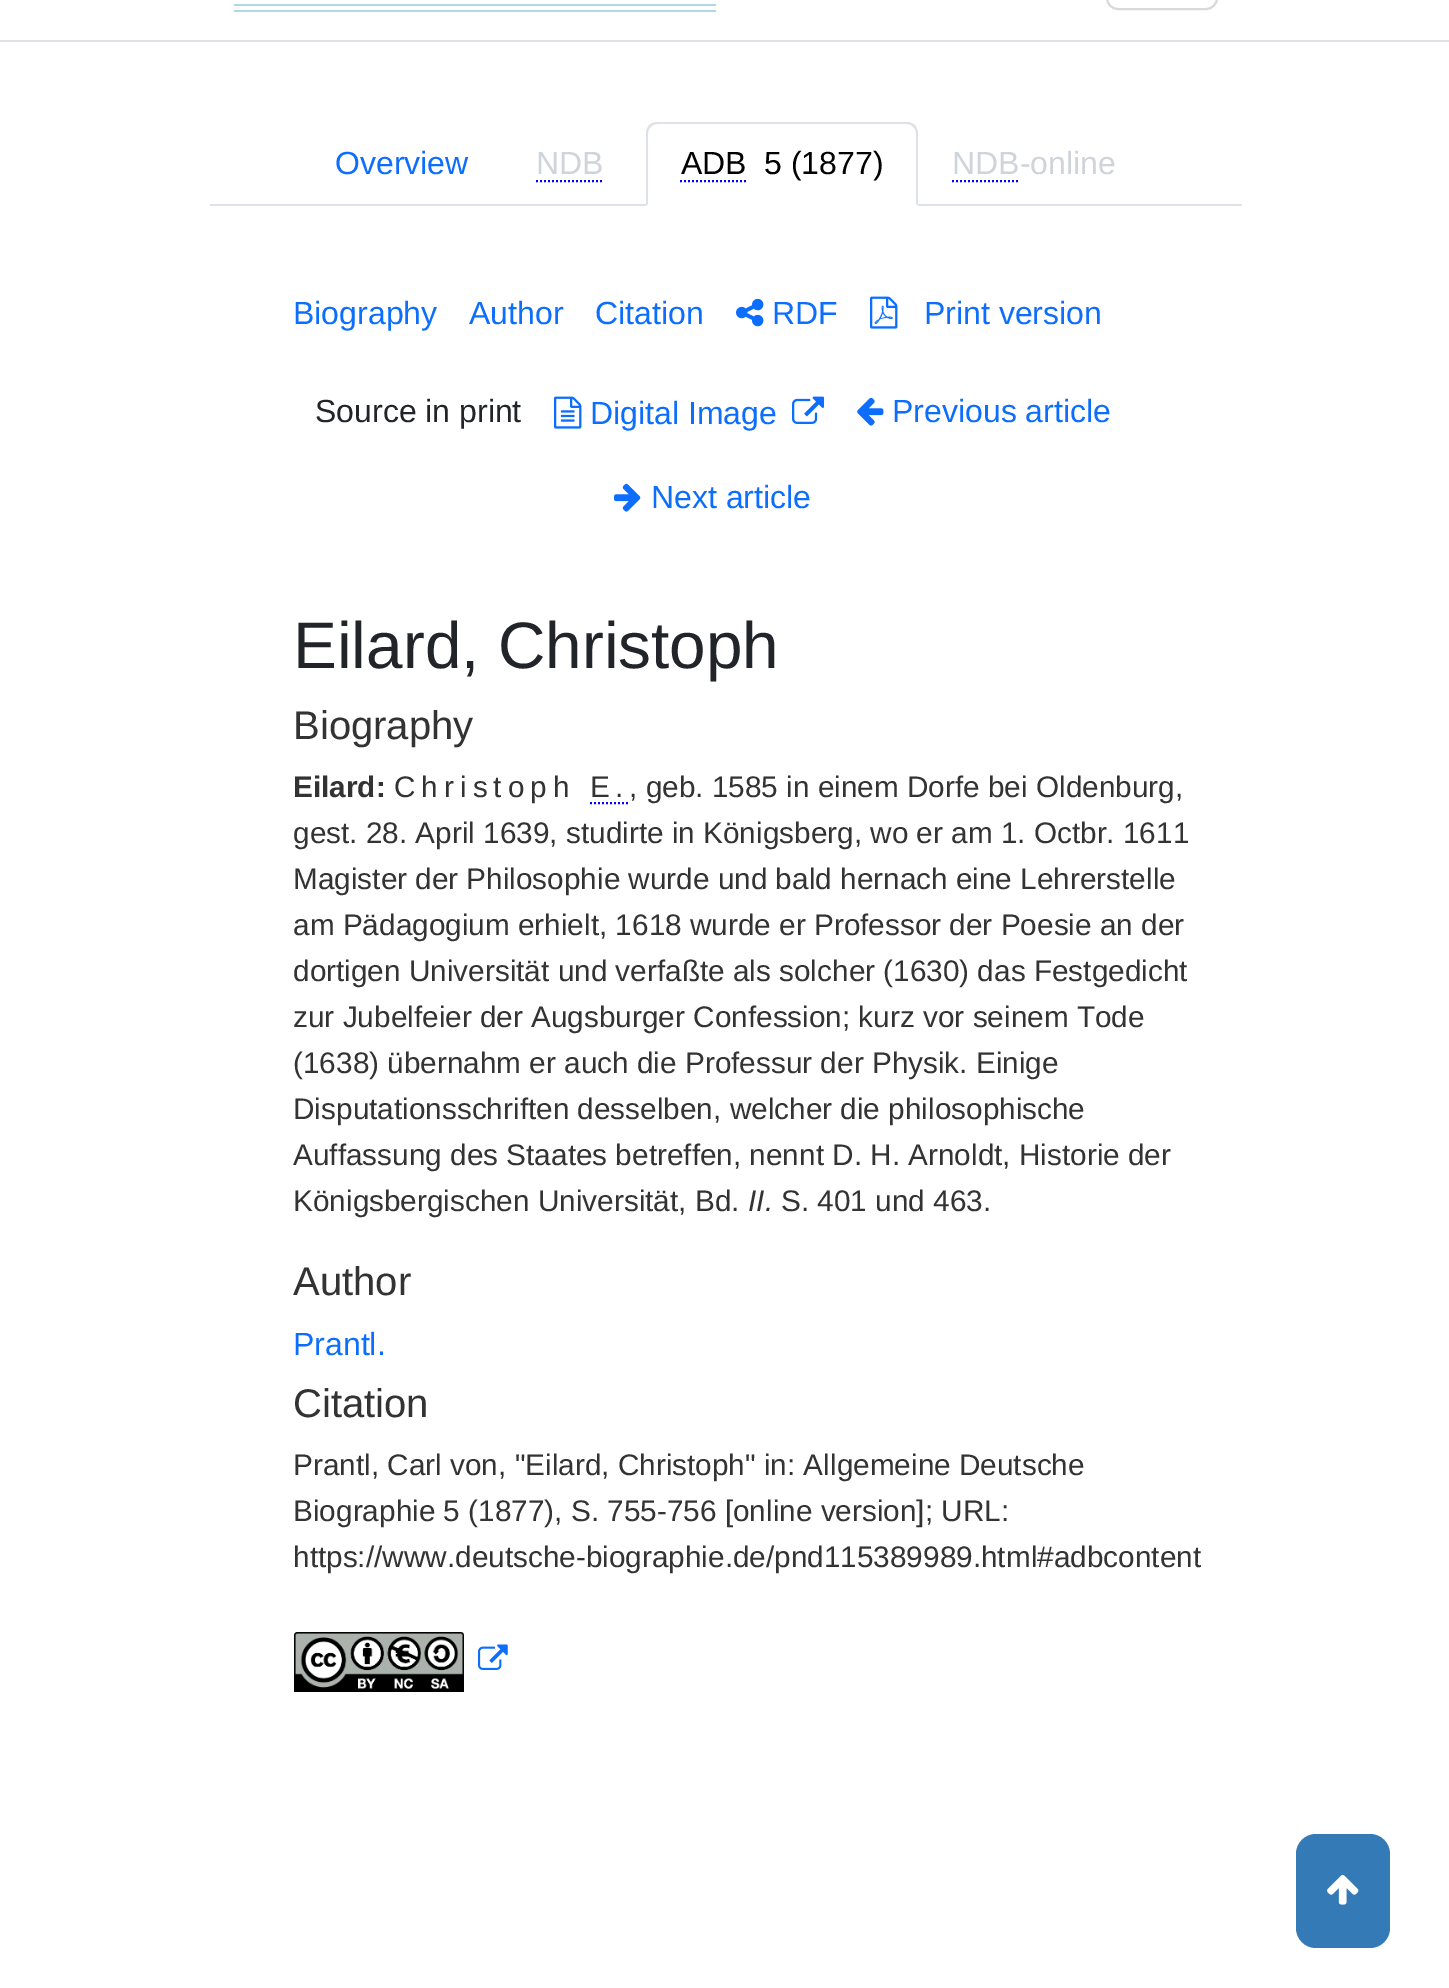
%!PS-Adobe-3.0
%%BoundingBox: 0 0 1449 1988
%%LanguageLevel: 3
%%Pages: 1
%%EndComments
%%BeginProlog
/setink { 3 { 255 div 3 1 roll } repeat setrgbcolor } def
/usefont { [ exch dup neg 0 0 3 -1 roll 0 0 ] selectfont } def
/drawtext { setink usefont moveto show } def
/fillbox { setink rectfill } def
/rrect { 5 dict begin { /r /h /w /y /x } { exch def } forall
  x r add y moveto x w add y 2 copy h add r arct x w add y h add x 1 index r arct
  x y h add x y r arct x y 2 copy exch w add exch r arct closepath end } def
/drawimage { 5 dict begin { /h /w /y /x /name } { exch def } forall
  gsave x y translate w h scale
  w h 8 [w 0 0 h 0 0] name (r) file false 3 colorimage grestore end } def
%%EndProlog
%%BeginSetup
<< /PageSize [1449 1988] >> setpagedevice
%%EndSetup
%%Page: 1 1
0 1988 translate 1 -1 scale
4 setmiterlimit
0 0 1449 1988 255 255 255 fillbox
0 40 1449 2 222 226 230 fillbox
234 4 482 2 173 216 230 fillbox
234 10 482 2 173 216 230 fillbox
217 217 217 setink
2 setlinewidth
1107 -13 110 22 11 rrect stroke
210 204 1032 2 222 226 230 fillbox
(Overview) 335 174 /LiberationSans-Regular 32 13 110 253 drawtext
(NDB) 536 174 /LiberationSans-Regular 32 206 212 218 drawtext
0 0 255 setink
[2 2] 0 setdash
536 181 moveto 604 181 lineto stroke
255 255 255 setink
658 122 moveto 906 122 lineto 912.5 122 918 127.5 918 134 curveto 918 206 lineto 646 206 lineto 646 134 lineto 646 127.5 651.5 122 658 122 curveto closepath fill
222 226 230 setink
658 122 moveto 654 122 652 123 649 125 curveto 651 127 lineto 652 125 655 124 658 124 curveto 906 124 lineto 909 124 912 125 913 127 curveto 915 125 lineto 912 123 910 122 906 122 curveto closepath fill
918 206 moveto 918 134 lineto 918 130 917 128 915 125 curveto 913 127 lineto 915 128 916 131 916 134 curveto 916 204 lineto closepath fill
255 255 255 setink
918 206 moveto 916 204 lineto 648 204 lineto 646 206 lineto closepath fill
222 226 230 setink
646 206 moveto 648 204 lineto 648 134 lineto 648 131 649 128 651 127 curveto 649 125 lineto 647 128 646 130 646 134 curveto closepath fill
(ADB) 681 174 /LiberationSans-Regular 32 0 0 0 drawtext
0 0 255 setink
680 181 moveto 746 181 lineto stroke
(5 \(1877\)) 764 174 /LiberationSans-Regular 32 0 0 0 drawtext
(NDB-online) 952 174 /LiberationSans-Regular 32 206 212 218 drawtext
0 0 255 setink
952 181 moveto 1020 181 lineto stroke
(Biography) 293 324 /LiberationSans-Regular 32 13 110 253 drawtext
(Author) 469 324 /LiberationSans-Regular 32 13 110 253 drawtext
(Citation) 595 324 /LiberationSans-Regular 32 13 110 253 drawtext
(assets/img1.rgb) 736 298 28 29 drawimage
(RDF) 772 324 /LiberationSans-Regular 32 13 110 253 drawtext
(assets/img2.rgb) 870 296 28 33 drawimage
(Print version) 924 324 /LiberationSans-Regular 32 13 110 253 drawtext
(Source in print) 315 422 /LiberationSans-Regular 32 33 37 41 drawtext
(assets/img3.rgb) 554 396 28 33 drawimage
(Digital Image) 590 424 /LiberationSans-Regular 32 13 110 253 drawtext
(assets/img4.rgb) 792 396 32 28 drawimage
(assets/img5.rgb) 857 397 27 29 drawimage
(Previous article) 892 422 /LiberationSans-Regular 32 13 110 253 drawtext
(assets/img6.rgb) 614 483 27 29 drawimage
(Next article) 651 508 /LiberationSans-Regular 32 13 110 253 drawtext
(Eilard, Christoph) 293 668 /LiberationSans-Regular 65.75 33 37 41 drawtext
(Biography) 293 739 /LiberationSans-Regular 40 51 51 51 drawtext
(Eilard:) 293 797 /LiberationSans-Bold 29.75 51 51 51 drawtext
/LiberationSans-Regular 29.75 usefont
394 797 moveto 6 0 (Christoph E.) ashow
0 0 255 setink
590 803 moveto 630 803 lineto stroke
(, geb. 1585 in einem Dorfe bei Oldenburg,) 629 797 /LiberationSans-Regular 29.75 51 51 51 drawtext
(gest. 28. April 1639, studirte in Königsberg, wo er am 1. Octbr. 1611) 293 843 /LiberationSans-Regular 29.75 51 51 51 drawtext
(Magister) 293 889 /LiberationSans-Regular 29.75 51 51 51 drawtext
(der Philosophie wurde und bald hernach eine Lehrerstelle) 415 889 /LiberationSans-Regular 29.75 51 51 51 drawtext
(am Pädagogium erhielt, 1618 wurde er Professor der Poesie an der) 293 935 /LiberationSans-Regular 29.75 51 51 51 drawtext
(dortigen Universität und verfaßte als solcher \(1630\) das Festgedicht) 293 981 /LiberationSans-Regular 29.75 51 51 51 drawtext
(zur Jubelfeier der Augsburger Confession; kurz vor seinem Tode) 293 1027 /LiberationSans-Regular 29.75 51 51 51 drawtext
(\(1638\) übernahm er auch die Professur der Physik. Einige) 293 1073 /LiberationSans-Regular 29.75 51 51 51 drawtext
(Disputationsschriften desselben, welcher die philosophische) 293 1119 /LiberationSans-Regular 29.75 51 51 51 drawtext
(Auffassung des Staates betreffen, nennt D. H. Arnoldt, Historie der) 293 1165 /LiberationSans-Regular 29.75 51 51 51 drawtext
(Königsbergischen Universität, Bd.) 293 1211 /LiberationSans-Regular 29.75 51 51 51 drawtext
(II.) 748 1211 /LiberationSans-Italic 29.75 51 51 51 drawtext
(S. 401 und 463.) 781 1211 /LiberationSans-Regular 29.75 51 51 51 drawtext
(Author) 293 1295 /LiberationSans-Regular 40 51 51 51 drawtext
(Prantl.) 293 1355 /LiberationSans-Regular 32 13 110 253 drawtext
(Citation) 293 1417 /LiberationSans-Regular 40 51 51 51 drawtext
(Prantl, Carl von, "Eilard, Christoph" in: Allgemeine Deutsche) 293 1475 /LiberationSans-Regular 29.75 51 51 51 drawtext
(Biographie 5 \(1877\), S. 755-756 [online version]; URL:) 293 1521 /LiberationSans-Regular 29.75 51 51 51 drawtext
(https://www.deutsche-biographie.de/pnd115389989.html#adbcontent) 293 1567 /LiberationSans-Regular 29.75 51 51 51 drawtext
(assets/img7.rgb) 294 1632 170 60 drawimage
(assets/img8.rgb) 478 1644 30 26 drawimage
51 122 183 setink
1296 1834 94 114 20 rrect fill
(assets/img9.rgb) 1327 1875 32 30 drawimage
showpage
%%EOF
